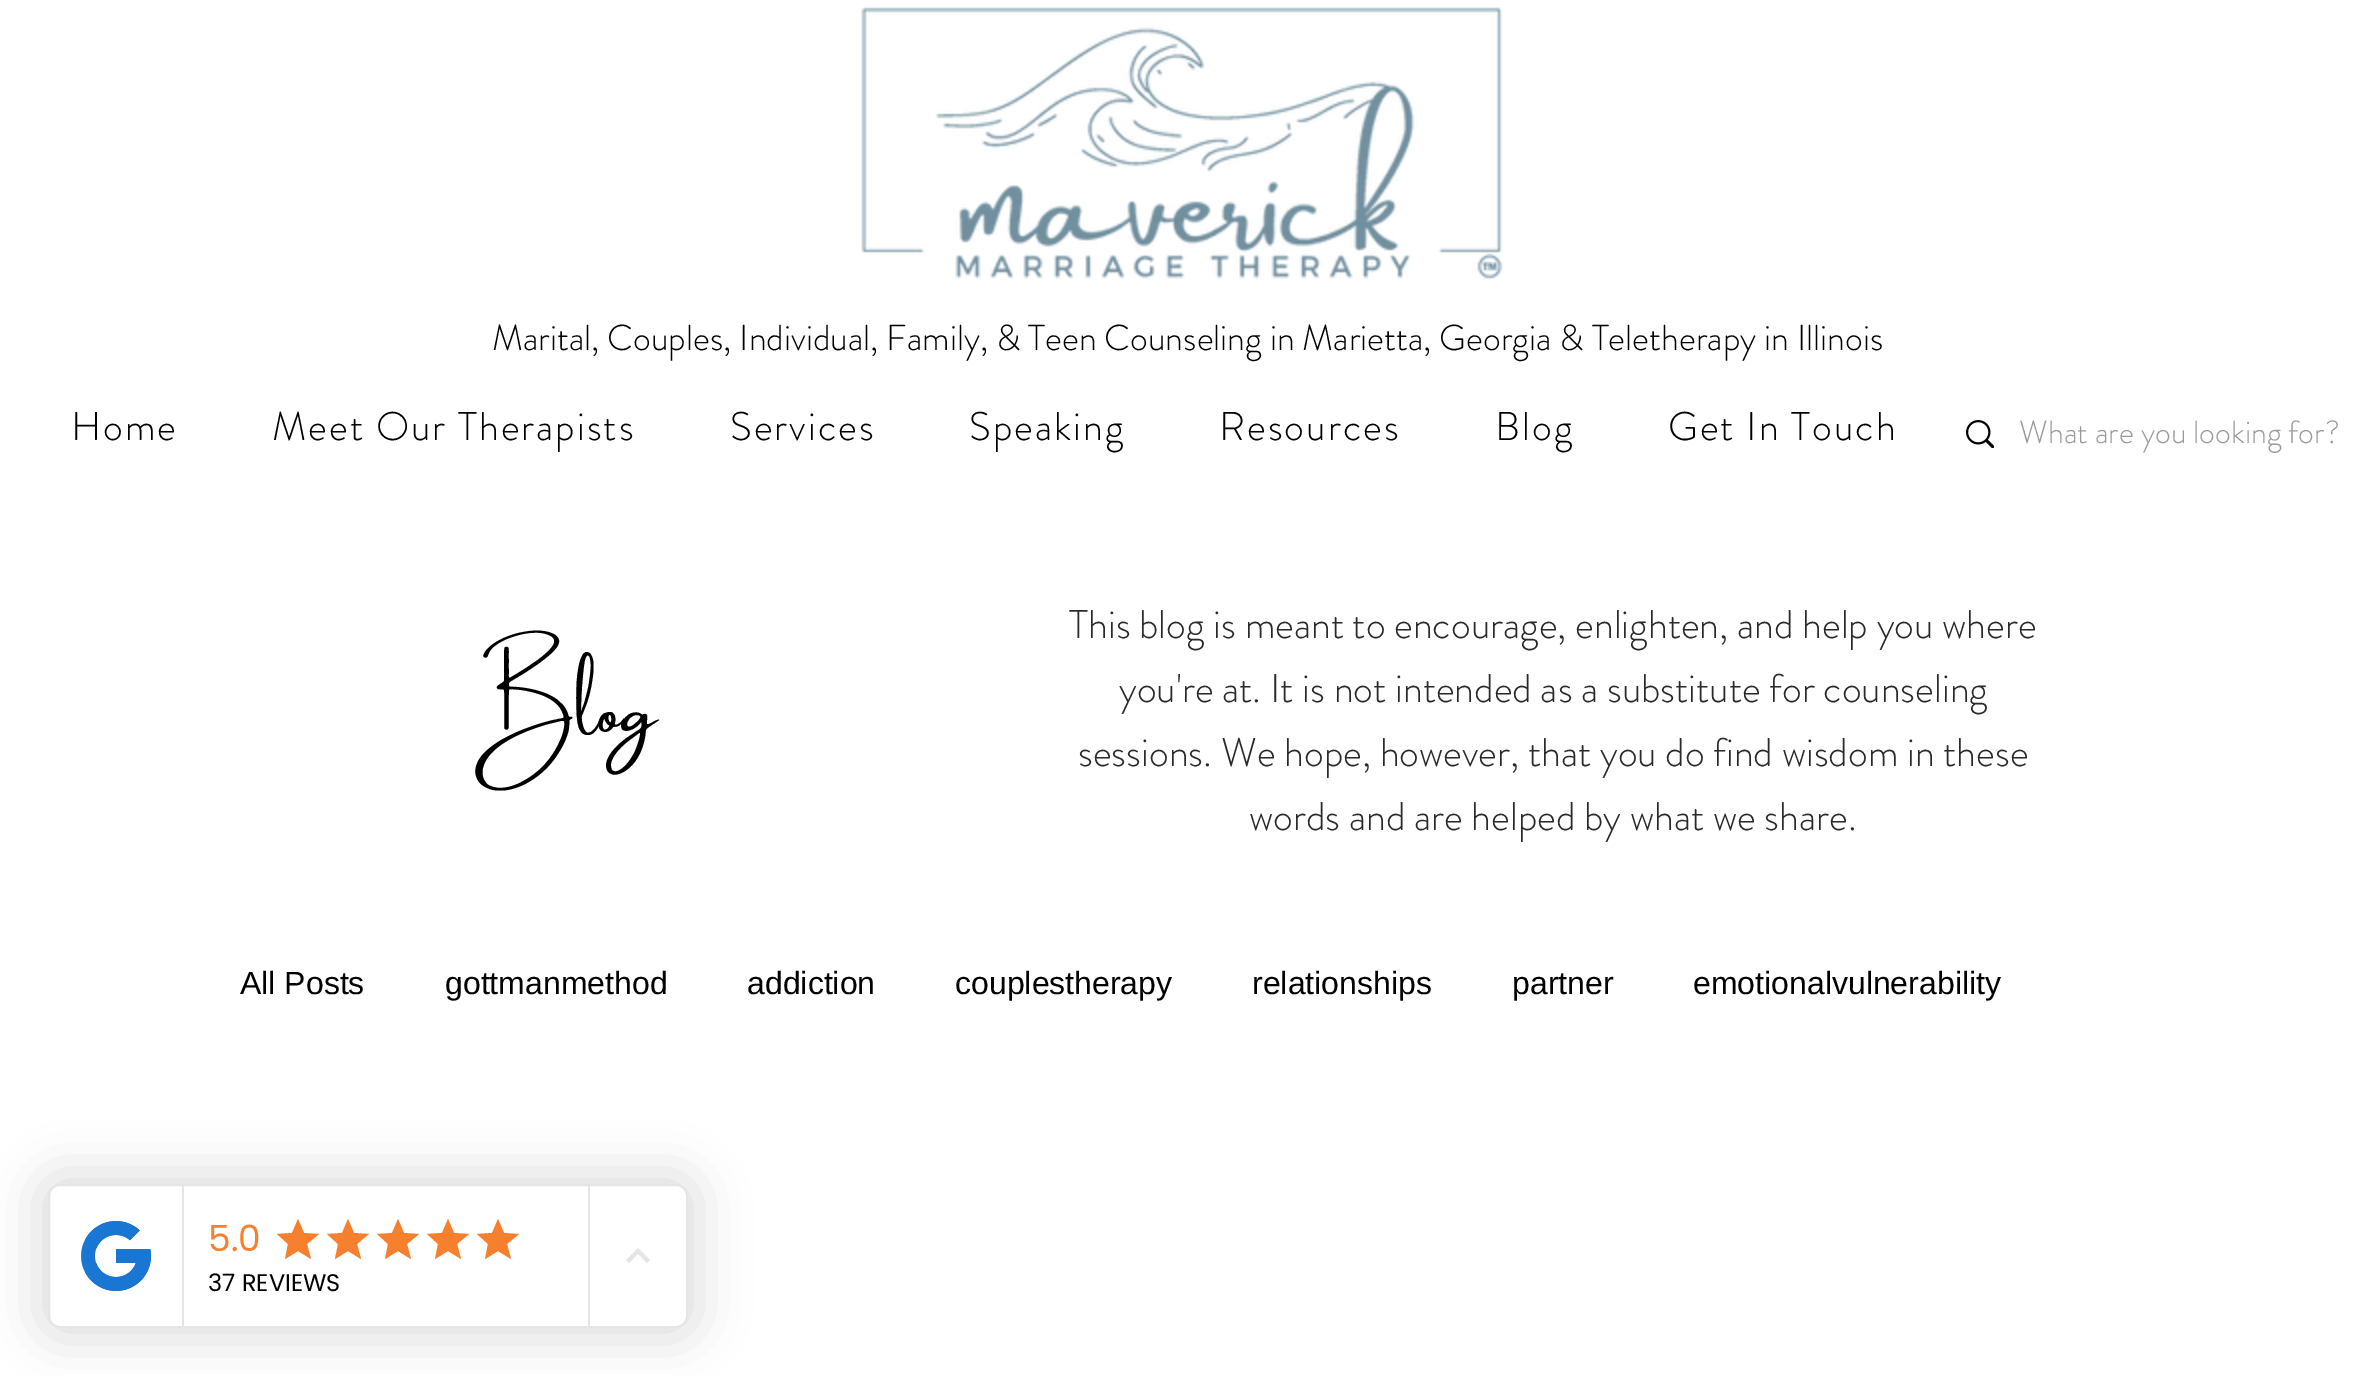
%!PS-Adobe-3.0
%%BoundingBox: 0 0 2359 1375
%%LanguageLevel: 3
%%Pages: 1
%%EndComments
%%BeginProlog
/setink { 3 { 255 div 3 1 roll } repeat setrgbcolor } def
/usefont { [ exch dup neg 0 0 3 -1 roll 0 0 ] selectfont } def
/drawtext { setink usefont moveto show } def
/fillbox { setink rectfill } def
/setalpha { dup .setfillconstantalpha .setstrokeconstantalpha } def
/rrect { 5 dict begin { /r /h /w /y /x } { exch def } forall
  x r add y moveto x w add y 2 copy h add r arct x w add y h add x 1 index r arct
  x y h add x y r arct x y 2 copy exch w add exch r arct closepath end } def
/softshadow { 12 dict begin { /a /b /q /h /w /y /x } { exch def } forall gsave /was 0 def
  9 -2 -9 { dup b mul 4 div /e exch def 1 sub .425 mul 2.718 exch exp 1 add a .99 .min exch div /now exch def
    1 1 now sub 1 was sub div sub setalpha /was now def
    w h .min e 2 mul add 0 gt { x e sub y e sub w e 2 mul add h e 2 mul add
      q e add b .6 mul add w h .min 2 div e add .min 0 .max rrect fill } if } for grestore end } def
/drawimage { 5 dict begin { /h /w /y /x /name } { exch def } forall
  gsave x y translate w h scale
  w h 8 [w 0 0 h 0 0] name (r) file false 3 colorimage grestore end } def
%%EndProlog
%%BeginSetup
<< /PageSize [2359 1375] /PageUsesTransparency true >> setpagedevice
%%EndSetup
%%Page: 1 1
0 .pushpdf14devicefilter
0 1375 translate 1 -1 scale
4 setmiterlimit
0 0 2359 1375 255 255 255 fillbox
(assets/img1.rgb) 861 7 642 273 drawimage
(Marital, Couples, Individual, Family, & Teen Counseling in Marietta, Georgia & Teletherapy in Illinois) 492 350 /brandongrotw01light-Light 36 0 0 0 drawtext
/brandongrotw01light-Light 40 usefont
71 440 moveto 2 0 (Home) ashow
272 440 moveto 2 0 (Meet Our Therapists) ashow
730 440 moveto 2 0 (Services) ashow
969 440 moveto 2 0 (Speaking) ashow
1219 440 moveto 2 0 (Resources) ashow
1495 440 moveto 2 0 (Blog) ashow
1668 440 moveto 2 0 (Get In Touch) ashow
(assets/img2.rgb) 1966 420 28 28 drawimage
(What are you looking for?) 2019 443 /brandongrotw01light-Light 32 153 153 153 drawtext
(Blog) 474 736 /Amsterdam-Regular 48 0 0 0 drawtext
(This blog is meant to encourage, enlighten, and help you where) 1069 638 /brandongrotw01light-Light 40 41 41 41 drawtext
(you're at. It is not intended as a substitute for counseling) 1119 702 /brandongrotw01light-Light 40 41 41 41 drawtext
(sessions. We hope, however, that you do find wisdom in these) 1078 766 /brandongrotw01light-Light 40 41 41 41 drawtext
(words and are helped by what we share.) 1249 830 /brandongrotw01light-Light 40 41 41 41 drawtext
(All Posts) 240 994 /Arimo-Regular 32 0 0 0 drawtext
(gottmanmethod) 445 994 /Arimo-Regular 32 0 0 0 drawtext
(addiction) 747 994 /Arimo-Regular 32 0 0 0 drawtext
(couplestherapy) 955 994 /Arimo-Regular 32 0 0 0 drawtext
(relationships) 1252 994 /Arimo-Regular 32 0 0 0 drawtext
(partner) 1512 994 /Arimo-Regular 32 0 0 0 drawtext
(emotionalvulnerability) 1693 994 /Arimo-Regular 32 0 0 0 drawtext
36 1172 664 168 24 24 0.12 softshadow
255 255 255 setink
49 1185 638 142 11 rrect gsave fill grestore
229 229 229 setink
2 setlinewidth
stroke
182 1186 2 140 229 229 229 fillbox
(assets/img3.rgb) 81 1221 70 70 drawimage
588 1186 2 140 229 229 229 fillbox
(5.0) 208 1251 /Poppins-Regular 36 247 128 47 drawtext
298 1251 moveto 311 1259 lineto 307 1244 lineto 319 1234 lineto 304 1233 lineto 298 1219 lineto 292 1233 lineto 277 1234 lineto 288 1244 lineto 285 1259 lineto closepath fill
348 1251 moveto 361 1259 lineto 357 1244 lineto 369 1234 lineto 354 1233 lineto 348 1219 lineto 342 1233 lineto 327 1234 lineto 338 1244 lineto 335 1259 lineto closepath fill
398 1251 moveto 411 1259 lineto 407 1244 lineto 419 1234 lineto 404 1233 lineto 398 1219 lineto 392 1233 lineto 377 1234 lineto 388 1244 lineto 385 1259 lineto closepath fill
448 1251 moveto 461 1259 lineto 457 1244 lineto 469 1234 lineto 454 1233 lineto 448 1219 lineto 442 1233 lineto 427 1234 lineto 438 1244 lineto 435 1259 lineto closepath fill
498 1251 moveto 511 1259 lineto 507 1244 lineto 519 1234 lineto 504 1233 lineto 498 1219 lineto 492 1233 lineto 477 1234 lineto 488 1244 lineto 485 1259 lineto closepath fill
(37 REVIEWS) 208 1291 /Poppins-Regular 24 0 0 0 drawtext
229 229 229 setink
629 1263 moveto 638 1253.5 lineto 647 1263 lineto 650 1260 lineto 638 1248 lineto 626 1260 lineto closepath fill
.poppdf14devicefilter showpage
%%EOF
